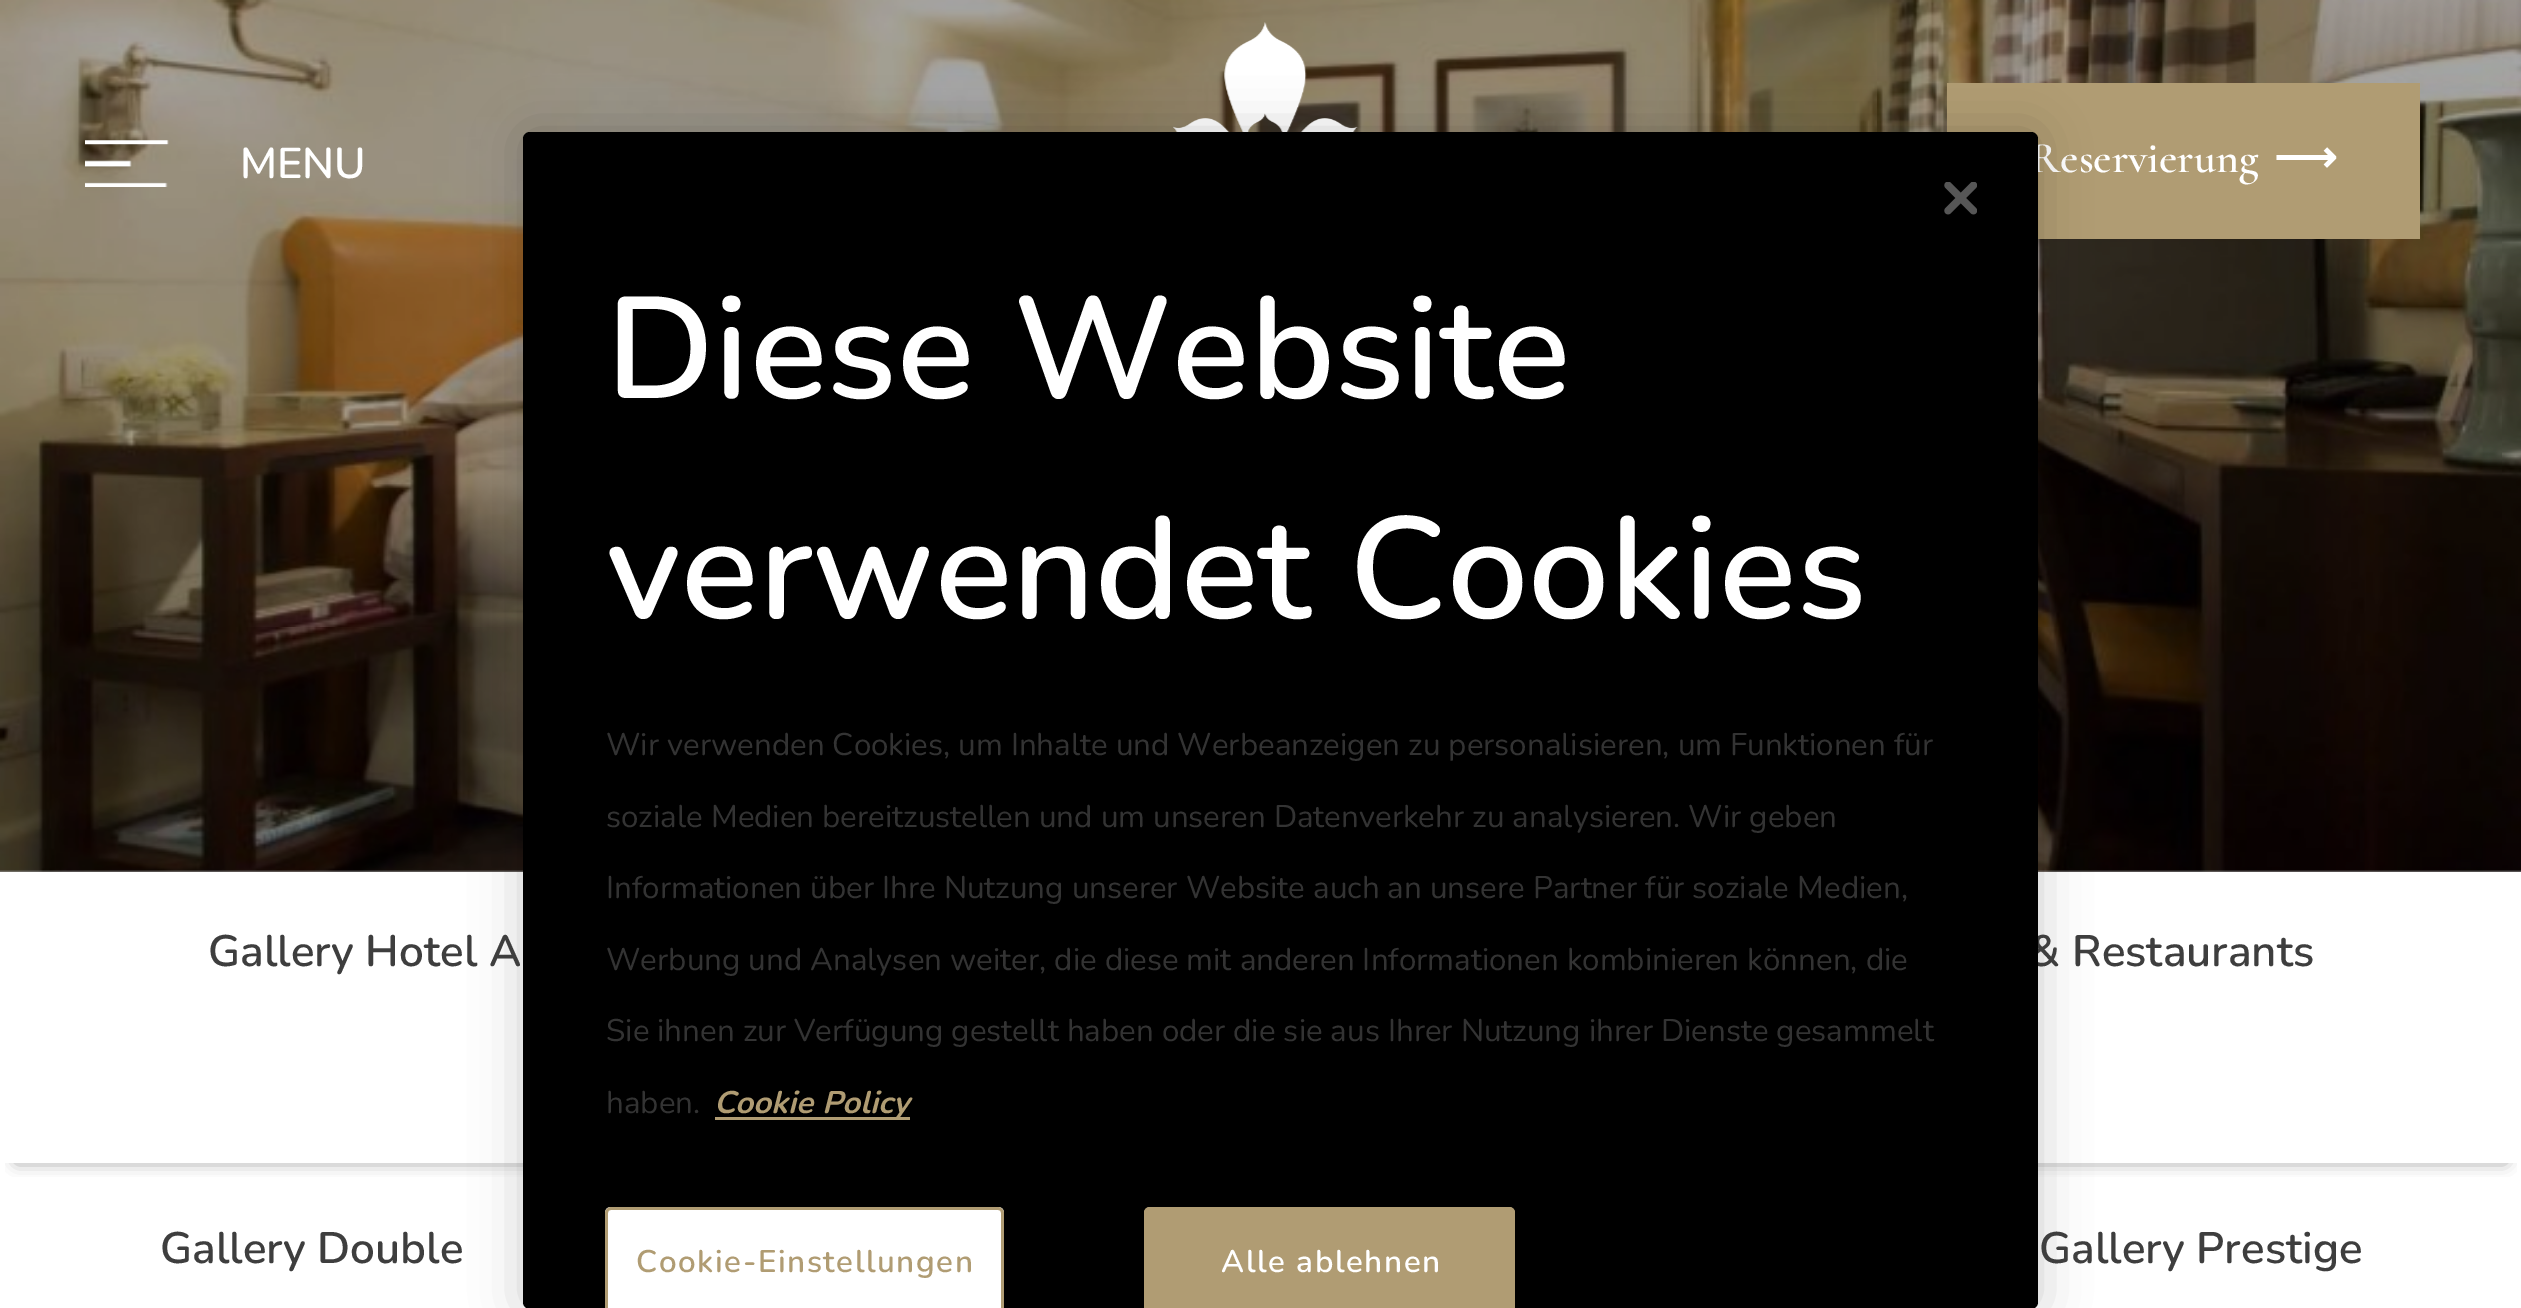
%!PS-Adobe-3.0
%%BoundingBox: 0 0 2521 1308
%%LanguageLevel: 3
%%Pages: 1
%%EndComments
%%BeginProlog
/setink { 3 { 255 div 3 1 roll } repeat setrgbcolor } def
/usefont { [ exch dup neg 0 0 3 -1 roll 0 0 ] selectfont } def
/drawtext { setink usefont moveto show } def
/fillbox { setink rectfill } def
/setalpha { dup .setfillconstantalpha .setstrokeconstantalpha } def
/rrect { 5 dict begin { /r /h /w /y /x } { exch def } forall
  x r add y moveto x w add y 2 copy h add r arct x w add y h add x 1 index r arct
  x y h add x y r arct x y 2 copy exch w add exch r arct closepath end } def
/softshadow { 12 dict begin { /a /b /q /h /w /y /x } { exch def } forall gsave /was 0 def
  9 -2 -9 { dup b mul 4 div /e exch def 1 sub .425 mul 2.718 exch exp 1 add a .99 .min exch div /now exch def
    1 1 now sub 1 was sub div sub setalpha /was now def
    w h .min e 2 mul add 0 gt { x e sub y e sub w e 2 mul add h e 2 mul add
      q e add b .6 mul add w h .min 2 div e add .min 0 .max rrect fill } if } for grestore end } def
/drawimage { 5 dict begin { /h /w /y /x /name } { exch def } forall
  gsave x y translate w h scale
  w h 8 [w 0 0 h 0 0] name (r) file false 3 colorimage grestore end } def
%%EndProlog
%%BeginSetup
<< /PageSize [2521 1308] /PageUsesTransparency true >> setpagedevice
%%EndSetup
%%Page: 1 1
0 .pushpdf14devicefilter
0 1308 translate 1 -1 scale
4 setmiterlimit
0 0 2521 1308 255 255 255 fillbox
0 870 2521 2 166 166 166 fillbox
(assets/img4.rgb) 0 0 2521 872 drawimage
(assets/img1.rgb) 1173 22 185 110 drawimage
(assets/img2.rgb) 85 140 84 47 drawimage
(MENU) 240 178 /Nunito-SemiBold 43 255 255 255 drawtext
1947 83 473 156 176 156 115 fillbox
(Reservierung) 2030 172 /Cormorant-SemiBold 44 255 255 255 drawtext
(⟶) 2274 172 /DejaVuSans-Bold 44 255 255 255 drawtext
0 0 0 setink
523 132 1515 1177 7 25 0.2 softshadow
gsave
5 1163 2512 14 rectclip
128 128 128 setink
17 902 2488 259 0 8 1 softshadow
grestore
(& Restaurants) 2029 966 /Nunito-SemiBold 44 62 62 62 drawtext
0 0 0 setink
523 132 1515 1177 7 rrect fill
(assets/img3.rgb) 1944 182 33 33 drawimage
(Diese Website) 606 398 /Nunito-SemiBold 144.4 255 255 255 drawtext
(verwendet Cookies) 606 618 /Nunito-SemiBold 144.4 255 255 255 drawtext
(Wir verwenden Cookies, um Inhalte und Werbeanzeigen zu personalisieren, um Funktionen für) 606 755 /Nunito-Regular 31.3 51 51 51 drawtext
(soziale Medien bereitzustellen und um unseren Datenverkehr zu analysieren. Wir geben) 606 827 /Nunito-Regular 31.3 51 51 51 drawtext
(Informationen über Ihre Nutzung unserer Website auch an unsere Partner für soziale Medien,) 606 898 /Nunito-Regular 31.3 51 51 51 drawtext
(Werbung und Analysen weiter, die diese mit anderen Informationen kombinieren können, die) 606 970 /Nunito-Regular 31.3 51 51 51 drawtext
(Sie ihnen zur Verfügung gestellt haben oder die sie aus Ihrer Nutzung ihrer Dienste gesammelt) 606 1041 /Nunito-Regular 31.3 51 51 51 drawtext
(haben.) 606 1113 /Nunito-Regular 31.3 51 51 51 drawtext
715 1117 195 3 176 156 115 fillbox
(Cookie Policy) 714 1113 /Nunito-BoldItalic 31.3 176 156 115 drawtext
255 255 255 setink
611 1207 moveto 998 1207 lineto 1001.5 1207 1004 1209.5 1004 1213 curveto 1004 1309 lineto 605 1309 lineto 605 1213 lineto 605 1209.5 607.5 1207 611 1207 curveto closepath fill
176 156 115 setink
611 1207 moveto 608 1207 605 1210 605 1213 curveto 605 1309 lineto 608 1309 lineto 608 1213 lineto 608 1211 609 1210 611 1210 curveto 998 1210 lineto 1000 1210 1001 1211 1001 1213 curveto 1001 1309 lineto 1004 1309 lineto 1004 1213 lineto 1004 1210 1001 1207 998 1207 curveto closepath fill
/Nunito-SemiBold 31.3 usefont
636 1272 moveto 1.6 0 (Cookie-Einstellungen) ashow
1150 1207 moveto 1509 1207 lineto 1512.5 1207 1515 1209.5 1515 1213 curveto 1515 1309 lineto 1144 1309 lineto 1144 1213 lineto 1144 1209.5 1146.5 1207 1150 1207 curveto closepath fill
1150 1207 moveto 1147 1207 1144 1210 1144 1213 curveto 1144 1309 lineto 1147 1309 lineto 1147 1213 lineto 1147 1211 1148 1210 1150 1210 curveto 1509 1210 lineto 1511 1210 1512 1211 1512 1213 curveto 1512 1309 lineto 1515 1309 lineto 1515 1213 lineto 1515 1210 1512 1207 1509 1207 curveto closepath fill
255 255 255 setink
1221 1272 moveto 1.6 0 (Alle ablehnen) ashow
(Gallery Hotel A) 208 966 /Nunito-SemiBold 44 62 62 62 drawtext
(Gallery Double) 160 1263 /Nunito-SemiBold 44 62 62 62 drawtext
(Gallery Prestige) 2039 1263 /Nunito-SemiBold 44 62 62 62 drawtext
.poppdf14devicefilter showpage
%%EOF
